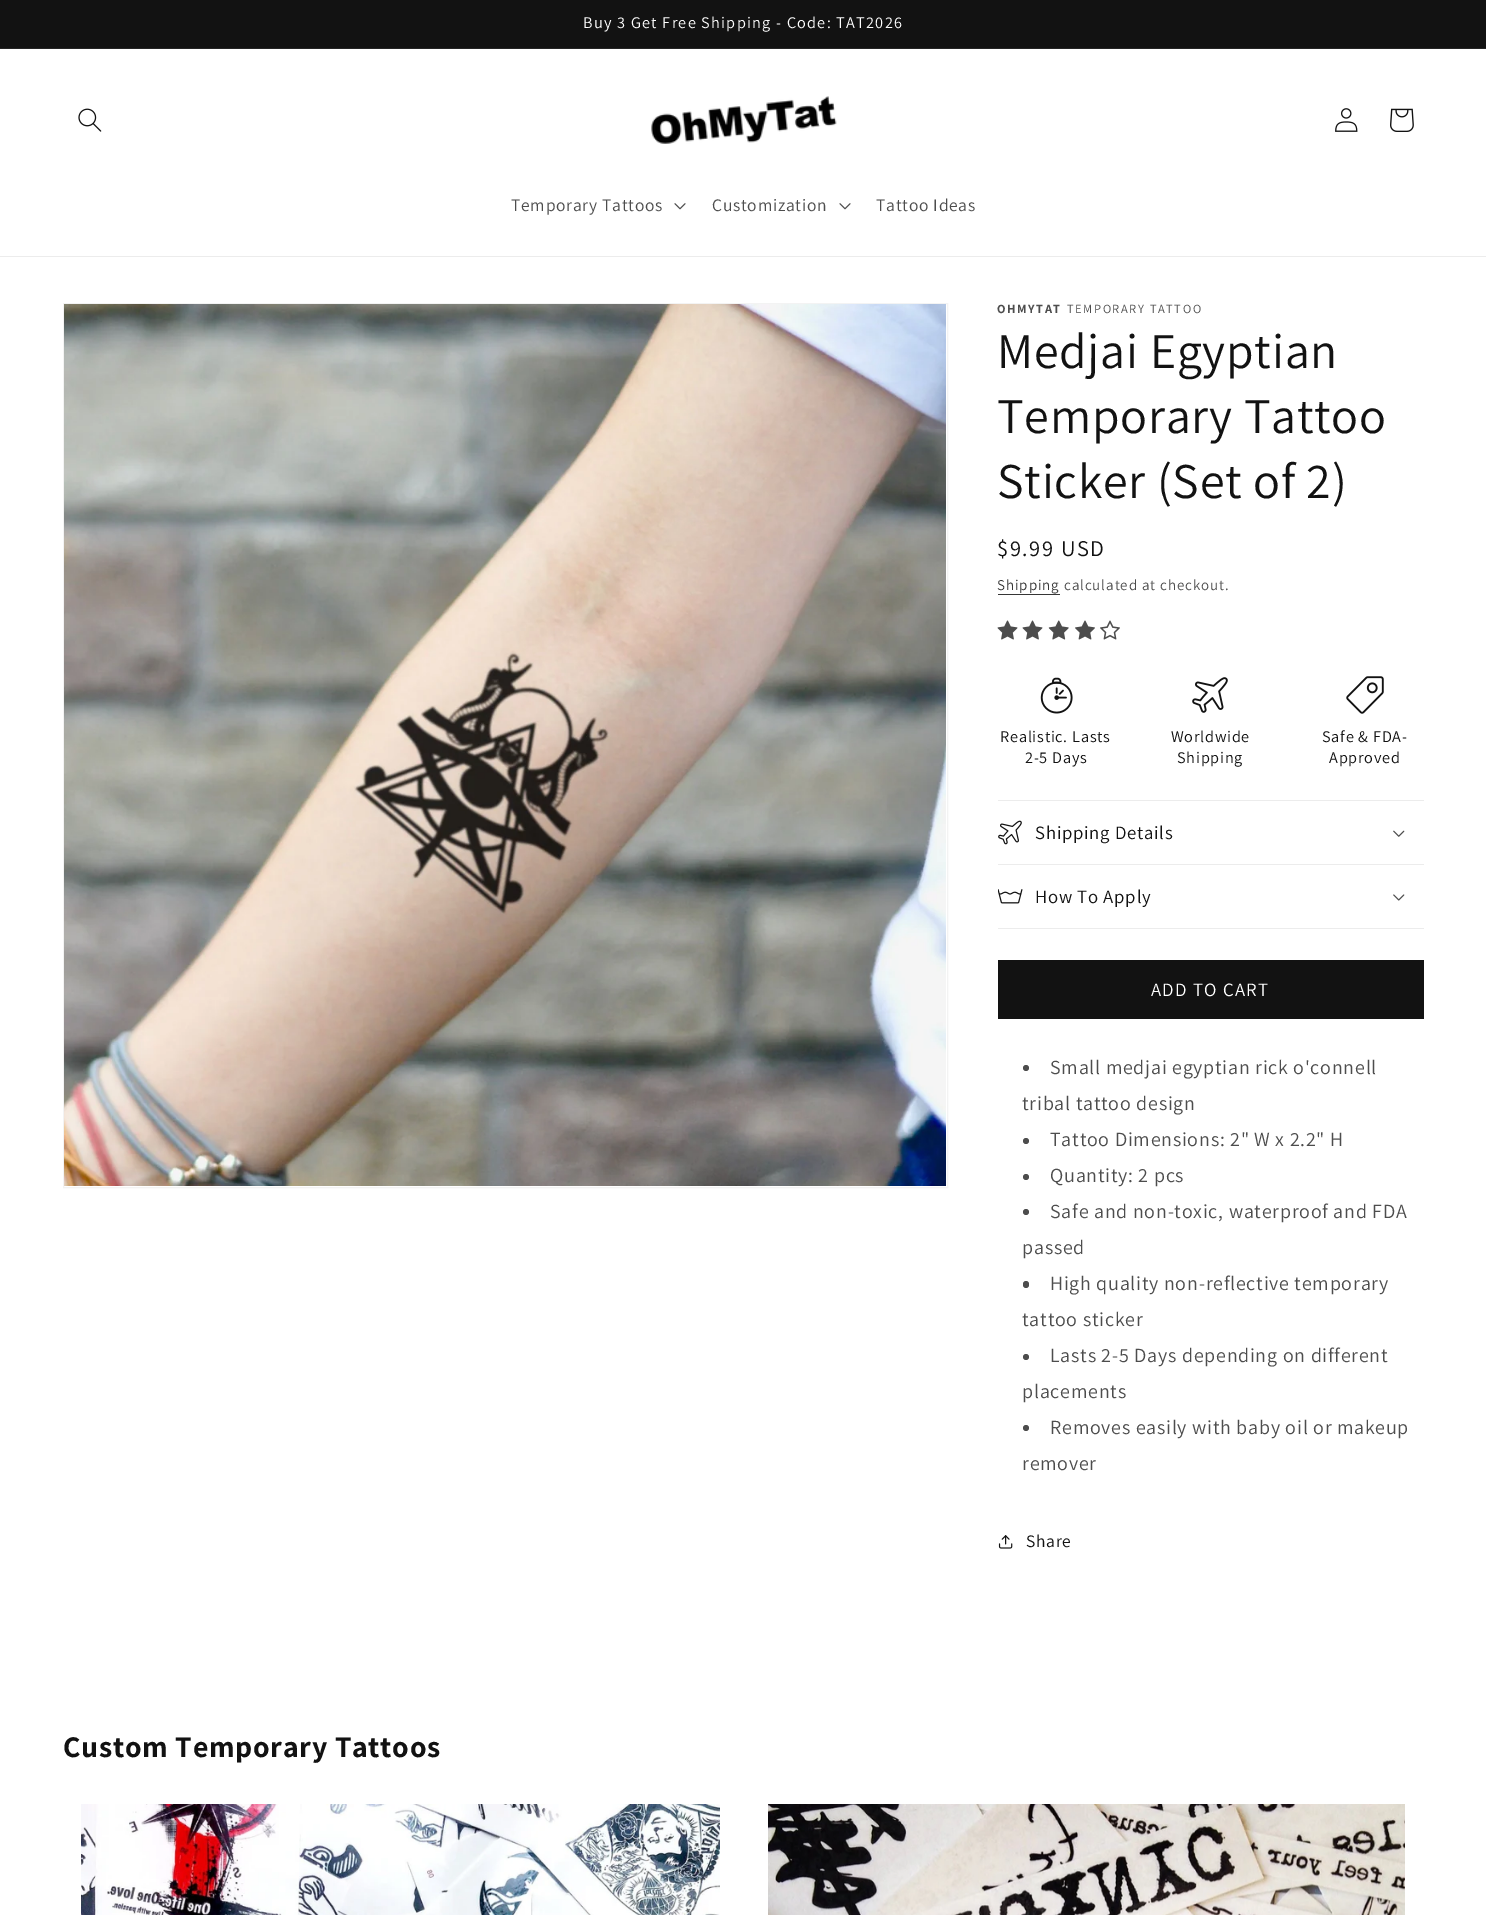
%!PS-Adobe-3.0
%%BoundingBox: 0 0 1486 1915
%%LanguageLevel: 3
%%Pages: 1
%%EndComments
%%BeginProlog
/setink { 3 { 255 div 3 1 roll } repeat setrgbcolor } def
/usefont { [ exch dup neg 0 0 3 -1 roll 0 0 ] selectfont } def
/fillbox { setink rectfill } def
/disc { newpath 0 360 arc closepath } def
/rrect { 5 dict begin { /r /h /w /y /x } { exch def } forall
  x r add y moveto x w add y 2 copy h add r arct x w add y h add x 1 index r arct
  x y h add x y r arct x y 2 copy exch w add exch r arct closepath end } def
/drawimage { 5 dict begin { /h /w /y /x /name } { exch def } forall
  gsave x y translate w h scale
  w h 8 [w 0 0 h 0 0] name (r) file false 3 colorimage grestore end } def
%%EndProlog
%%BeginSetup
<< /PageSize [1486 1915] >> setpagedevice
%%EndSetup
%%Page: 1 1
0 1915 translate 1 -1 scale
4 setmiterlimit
0 0 1486 1915 255 255 255 fillbox
0 0 1486 48 18 18 18 fillbox
0 48 1486 1 37 37 37 fillbox
/Assistant-Regular 16.25 usefont
255 255 255 setink
583 28 moveto 1.25 0 (Buy 3 Get Free Shipping - Code: TAT2026) ashow
0 256 1486 1 236 236 236 fillbox
(assets/img1.rgb) 78 108 24 24 drawimage
(assets/img2.rgb) 651 96 186 48 drawimage
(assets/img3.rgb) 1335 108 23 24 drawimage
(assets/img4.rgb) 1390 108 24 24 drawimage
/Assistant-Regular 17.5 usefont
77 77 77 setink
511 211 moveto 0.75 0 (Temporary Tattoos) ashow
(assets/img5.rgb) 674 203 12 7 drawimage
712 211 moveto 0.75 0 (Customization) ashow
(assets/img5.rgb) 839 203 12 7 drawimage
876 211 moveto 0.75 0 (Tattoo Ideas) ashow
243 243 243 setink
63.5 303.5 884 884 rectstroke
(assets/img6.rgb) 64 304 882 882 drawimage
/Assistant-Bold 12.5 usefont
77 77 77 setink
997 313 moveto 1.6 0 (OHMYTAT) ashow
/Assistant-Regular 12.5 usefont
1067 313 moveto 1.6 0 (TEMPORARY TATTOO) ashow
/Assistant-Regular 50 usefont
18 18 18 setink
997 368 moveto 0.75 0 (Medjai Egyptian) ashow
997 433 moveto 0.75 0 (Temporary Tattoo) ashow
997 498 moveto 0.75 0 (Sticker \(Set of 2\)) ashow
/Assistant-Regular 22.5 usefont
997 556 moveto 1.6 0 ($9.99 USD) ashow
/Assistant-Regular 15 usefont
54 54 54 setink
997 590 moveto 0.9 0 (Shipping) ashow
998 594 62 1 54 54 54 fillbox
77 77 77 setink
1064 590 moveto 0.9 0 (calculated at checkout.) ashow
(assets/img7.rgb) 997 620 21 20 drawimage
(assets/img7.rgb) 1022 620 21 20 drawimage
(assets/img8.rgb) 1048 620 21 20 drawimage
(assets/img9.rgb) 1075 620 20 20 drawimage
(assets/img10.rgb) 1100 620 20 20 drawimage
(assets/img11.rgb) 1040 677 33 37 drawimage
/Assistant-Regular 16.25 usefont
18 18 18 setink
1000 742 moveto 0.75 0 (Realistic. Lasts) ashow
1025 763 moveto 0.75 0 (2-5 Days) ashow
(assets/img12.rgb) 1192 677 36 36 drawimage
1171 742 moveto 0.75 0 (Worldwide) ashow
1177 763 moveto 0.75 0 (Shipping) ashow
(assets/img13.rgb) 1346 676 38 38 drawimage
1322 742 moveto 0.75 0 (Safe & FDA-) ashow
1329 763 moveto 0.75 0 (Approved) ashow
998 800 426 1 236 236 236 fillbox
998 864 426 1 236 236 236 fillbox
(assets/img14.rgb) 998 820 24 25 drawimage
/Assistant-Regular 18.75 usefont
18 18 18 setink
1035 839 moveto 0.75 0 (Shipping Details) ashow
(assets/img15.rgb) 1393 830 12 7 drawimage
998 928 426 1 236 236 236 fillbox
(assets/img16.rgb) 998 889 25 15 drawimage
18 18 18 setink
1035 903 moveto 0.75 0 (How To Apply) ashow
(assets/img17.rgb) 1393 894 12 7 drawimage
998 960 426 59 18 18 18 fillbox
255 255 255 setink
1151 996 moveto 1.25 0 (ADD TO CART) ashow
77 77 77 setink
1026 1068 3 disc fill
/Assistant-Regular 20 usefont
1050 1074 moveto 0.75 0 (Small medjai egyptian rick o'connell) ashow
1022 1110 moveto 0.75 0 (tribal tattoo design) ashow
1026 1141 3 disc fill
1050 1146 moveto 0.75 0 (Tattoo Dimensions: 2" W x 2.2" H) ashow
1026 1177 3 disc fill
1050 1182 moveto 0.75 0 (Quantity: 2 pcs) ashow
1026 1212 3 disc fill
1050 1218 moveto 0.75 0 (Safe and non-toxic, waterproof and FDA) ashow
1022 1254 moveto 0.75 0 (passed) ashow
1023 1281 6 7 3 rrect fill
1050 1290 moveto 0.75 0 (High quality non-reflective temporary) ashow
1022 1326 moveto 0.75 0 (tattoo sticker) ashow
1026 1357 3 disc fill
1050 1362 moveto 0.75 0 (Lasts 2-5 Days depending on different) ashow
1022 1398 moveto 0.75 0 (placements) ashow
1026 1428 3 disc fill
1050 1434 moveto 0.75 0 (Removes easily with baby oil or makeup) ashow
1022 1470 moveto 0.75 0 (remover) ashow
(assets/img18.rgb) 998 1535 15 14 drawimage
/Assistant-Regular 17.5 usefont
18 18 18 setink
1026 1547 moveto 0.75 0 (Share) ashow
/Assistant-Bold 30 usefont
63 1757 moveto 0.75 0 (Custom Temporary Tattoos) ashow
(assets/img19.rgb) 81 1804 639 111 drawimage
(assets/img20.rgb) 768 1804 637 111 drawimage
showpage
%%EOF
